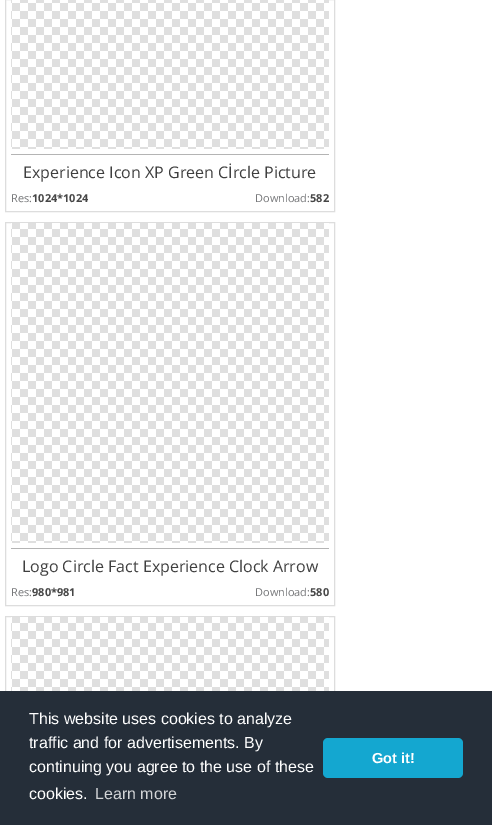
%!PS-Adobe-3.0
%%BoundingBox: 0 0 492 825
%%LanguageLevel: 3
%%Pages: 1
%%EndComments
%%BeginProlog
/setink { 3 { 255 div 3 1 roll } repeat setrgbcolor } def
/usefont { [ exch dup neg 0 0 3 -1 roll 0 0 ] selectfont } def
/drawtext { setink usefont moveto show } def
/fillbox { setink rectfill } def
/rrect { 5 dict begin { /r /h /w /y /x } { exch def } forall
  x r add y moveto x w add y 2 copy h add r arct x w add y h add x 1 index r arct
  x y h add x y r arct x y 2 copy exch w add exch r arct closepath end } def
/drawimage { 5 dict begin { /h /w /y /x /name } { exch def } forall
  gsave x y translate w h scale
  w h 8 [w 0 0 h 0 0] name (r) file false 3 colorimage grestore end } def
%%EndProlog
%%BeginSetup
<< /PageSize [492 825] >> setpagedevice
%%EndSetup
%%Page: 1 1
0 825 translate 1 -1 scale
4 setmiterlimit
0 0 492 825 255 255 255 fillbox
221 221 221 setink
5.5 -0.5 329 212 rectstroke
(assets/img1.rgb) 11 0 318 149 drawimage
11 154 318 1 180 180 180 fillbox
(Experience Icon XP Green Cİrcle Picture) 23 178 /OpenSans-Regular 16 63 63 63 drawtext
(Res:) 11 202 /OpenSans-Regular 11 120 121 123 drawtext
(1024*1024) 32 202 /OpenSans-Bold 11 70 70 70 drawtext
(Download:) 255 202 /OpenSans-Regular 11 120 121 123 drawtext
(582) 310 202 /OpenSans-Bold 11 70 70 70 drawtext
221 221 221 setink
5.5 222.5 329 383 rectstroke
(assets/img2.rgb) 11 223 318 320 drawimage
11 548 318 1 180 180 180 fillbox
(Logo Circle Fact Experience Clock Arrow) 22 572 /OpenSans-Regular 16 63 63 63 drawtext
(Res:) 11 596 /OpenSans-Regular 11 120 121 123 drawtext
(980*981) 32 596 /OpenSans-Bold 11 70 70 70 drawtext
(Download:) 255 596 /OpenSans-Regular 11 120 121 123 drawtext
(580) 310 596 /OpenSans-Bold 11 70 70 70 drawtext
221 221 221 setink
5.5 616.5 329 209 rectstroke
(assets/img3.rgb) 11 617 318 74 drawimage
0 691 492 134 37 46 57 fillbox
(This website uses cookies to analyze) 29 724 /LiberationSans-Regular 16 255 255 255 drawtext
(traffic and for advertisements. By) 29 748 /LiberationSans-Regular 16 255 255 255 drawtext
(continuing you agree to the use of these) 29 772 /LiberationSans-Regular 16 255 255 255 drawtext
(cookies.) 29 799 /LiberationSans-Regular 16 255 255 255 drawtext
(Learn more) 95 799 /LiberationSans-Regular 16 211 213 215 drawtext
20 167 208 setink
323 738 140 40 5 rrect fill
(Got it!) 372 763 /LiberationSans-Bold 14.5 255 255 255 drawtext
showpage
%%EOF
